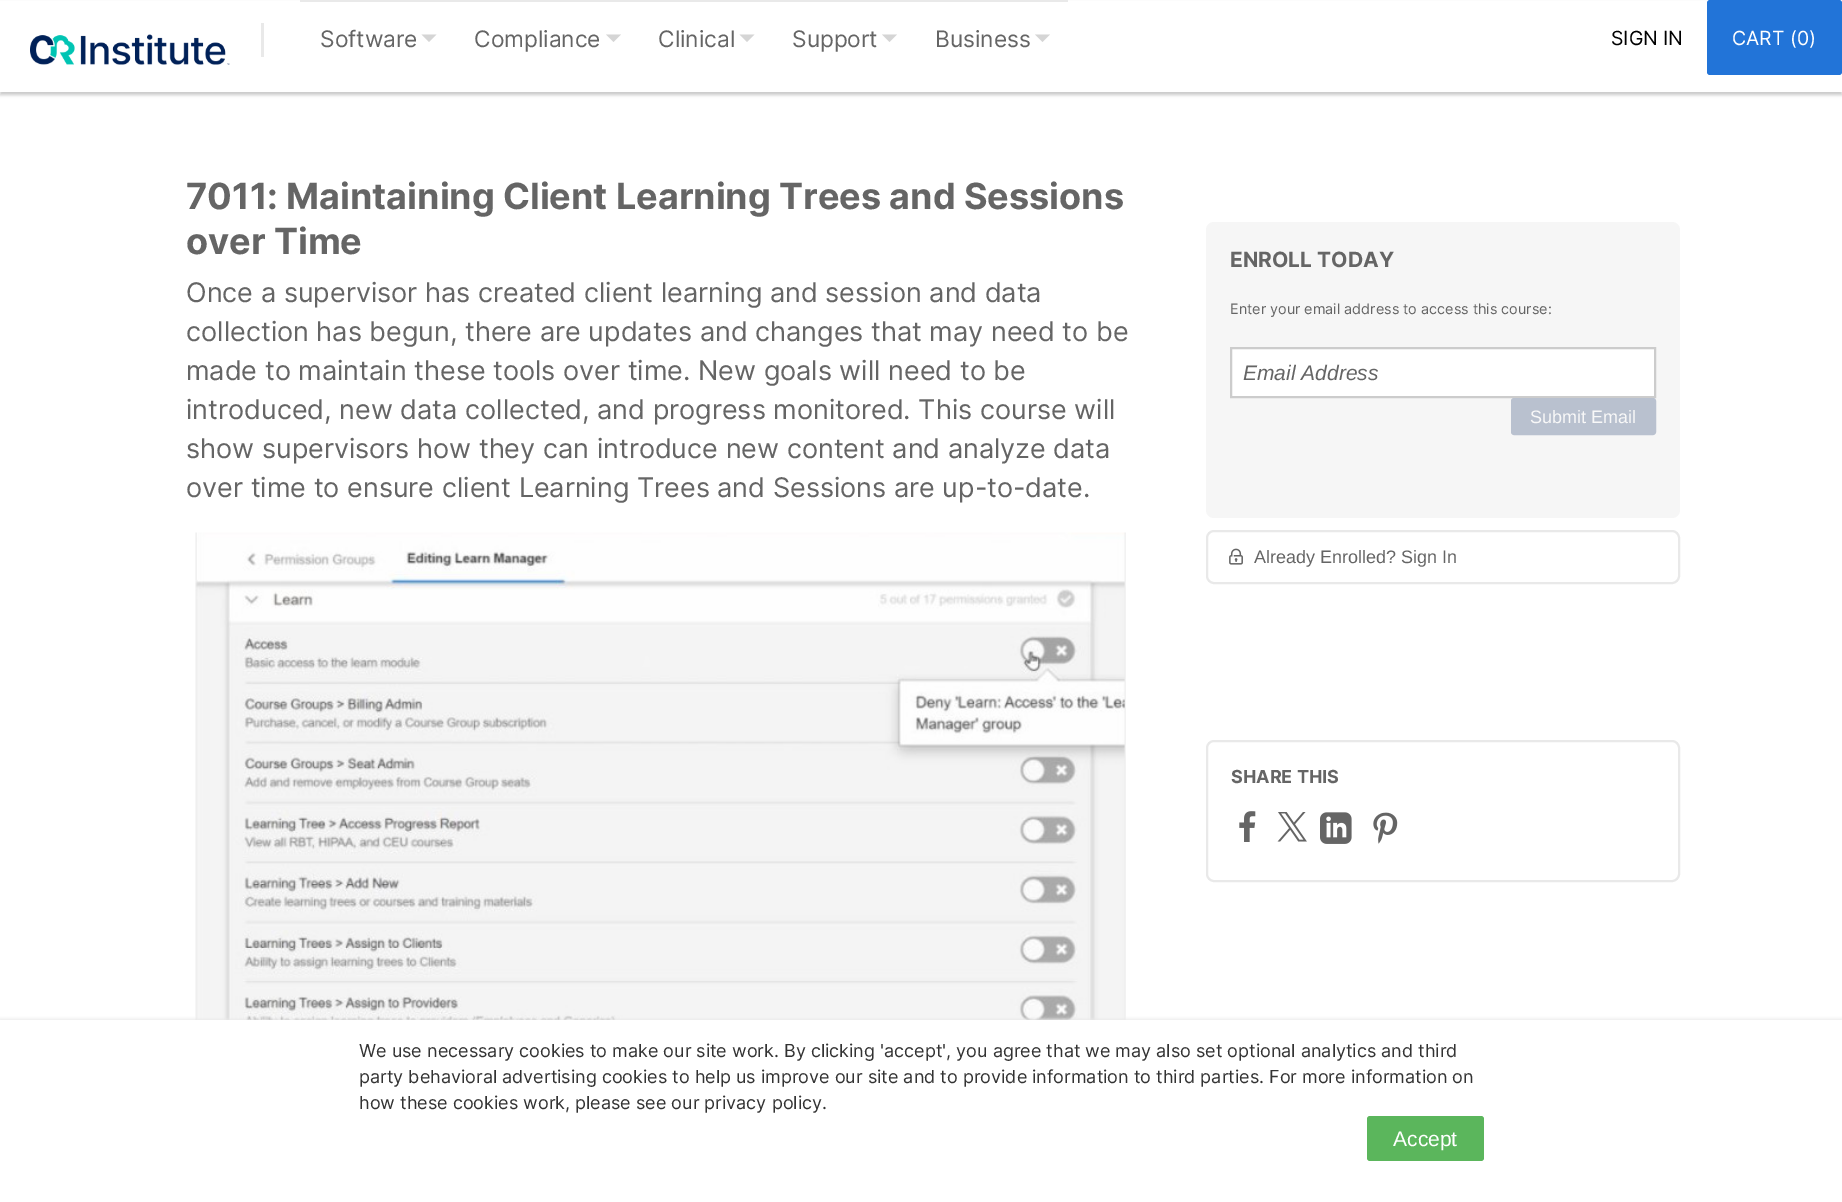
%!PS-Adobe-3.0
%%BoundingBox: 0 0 1842 1202
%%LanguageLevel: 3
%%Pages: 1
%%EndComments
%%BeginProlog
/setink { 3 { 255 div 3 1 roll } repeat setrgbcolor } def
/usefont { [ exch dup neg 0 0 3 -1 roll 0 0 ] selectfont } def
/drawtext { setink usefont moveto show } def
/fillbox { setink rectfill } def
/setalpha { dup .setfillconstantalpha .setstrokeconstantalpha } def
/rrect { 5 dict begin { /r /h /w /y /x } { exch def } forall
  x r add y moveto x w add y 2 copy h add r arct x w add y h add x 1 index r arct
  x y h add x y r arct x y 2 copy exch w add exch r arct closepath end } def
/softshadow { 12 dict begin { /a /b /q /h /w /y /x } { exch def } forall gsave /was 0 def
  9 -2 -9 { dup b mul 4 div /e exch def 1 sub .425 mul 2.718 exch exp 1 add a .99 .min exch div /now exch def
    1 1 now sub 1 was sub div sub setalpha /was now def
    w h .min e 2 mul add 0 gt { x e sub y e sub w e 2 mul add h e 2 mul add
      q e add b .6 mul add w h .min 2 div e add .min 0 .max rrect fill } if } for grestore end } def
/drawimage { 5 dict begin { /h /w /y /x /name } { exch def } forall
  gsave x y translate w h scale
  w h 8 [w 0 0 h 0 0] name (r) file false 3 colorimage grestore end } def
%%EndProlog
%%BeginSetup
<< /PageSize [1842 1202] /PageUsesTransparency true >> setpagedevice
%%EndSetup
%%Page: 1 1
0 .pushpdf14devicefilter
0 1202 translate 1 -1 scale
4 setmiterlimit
0 0 1842 1202 255 255 255 fillbox
0 0 0 setink
0 3 1842 92 0 1.5 0.2 softshadow
0 1 1842 91 255 255 255 fillbox
(assets/img1.rgb) 30 34 200 31 drawimage
261 23 3 34 233 233 233 fillbox
300 0 768 2 233 233 233 fillbox
(Software) 320 47 /Inter-Regular 22.75 101 101 101 drawtext
213 213 213 setink
421.5 34.5 moveto 436.5 34.5 lineto 429 42 lineto closepath fill
(Compliance) 474 47 /Inter-Regular 22.75 101 101 101 drawtext
213 213 213 setink
606 34.5 moveto 621 34.5 lineto 613.5 42 lineto closepath fill
(Clinical) 658 47 /Inter-Regular 22.75 101 101 101 drawtext
213 213 213 setink
739.5 34.5 moveto 754.5 34.5 lineto 747 42 lineto closepath fill
(Support) 792 47 /Inter-Regular 22.75 101 101 101 drawtext
213 213 213 setink
882 34.5 moveto 897 34.5 lineto 889.5 42 lineto closepath fill
(Business) 935 47 /Inter-Regular 22.75 101 101 101 drawtext
213 213 213 setink
1035 34.5 moveto 1050 34.5 lineto 1042.5 42 lineto closepath fill
(SIGN IN) 1611 45 /Inter-Regular 19.5 0 0 0 drawtext
34 116 216 setink
1707 0 135 75 3 rrect fill
(CART \(0\)) 1732 45 /Inter-Regular 19.5 255 255 255 drawtext
(7011: Maintaining Client Learning Trees and Sessions) 186 209 /Inter-Bold 36 101 101 101 drawtext
(over Time) 186 254 /Inter-Bold 36 101 101 101 drawtext
(Once a supervisor has created client learning and session and data) 186 302 /Inter-Regular 27 101 101 101 drawtext
(collection has begun, there are updates and changes that may need to be) 186 341 /Inter-Regular 27 101 101 101 drawtext
(made to maintain these tools over time. New goals will need to be) 186 380 /Inter-Regular 27 101 101 101 drawtext
(introduced, new data collected, and progress monitored. This course will) 186 419 /Inter-Regular 27 101 101 101 drawtext
(show supervisors how they can introduce new content and analyze data) 186 458 /Inter-Regular 27 101 101 101 drawtext
(over time to ensure client Learning Trees and Sessions are up-to-date.) 186 497 /Inter-Regular 27 101 101 101 drawtext
(assets/img2.rgb) 195 532 931 488 drawimage
246 246 246 setink
1206 222 474 296 8 rrect fill
(ENROLL TODAY) 1230 267 /Inter-Bold 21 101 101 101 drawtext
(Enter your email address to access this course:) 1230 314 /Inter-Regular 14.4 101 101 101 drawtext
255 255 255 setink
1231 348 moveto 1655 348 lineto 1655 397 lineto 1231 397 lineto closepath gsave fill grestore
204 204 204 setink
2 setlinewidth
stroke
(Email Address) 1243 380 /LiberationSans-Italic 21 101 101 101 drawtext
185 193 207 setink
1512 399 143 35 2 rrect gsave fill grestore
stroke
(Submit Email) 1530 423 /LiberationSans-Regular 18 248 248 248 drawtext
233 233 233 setink
1207 531 472 52 7 rrect stroke
(assets/img3.rgb) 1229 548 14 17 drawimage
(Already Enrolled? Sign In) 1254 563 /LiberationSans-Regular 18 101 101 101 drawtext
233 233 233 setink
1207 741 472 140 7 rrect stroke
(SHARE THIS) 1231 783 /Inter-Bold 18 101 101 101 drawtext
(assets/img4.rgb) 1239 811 17 31 drawimage
(assets/img5.rgb) 1277 812 30 30 drawimage
(assets/img6.rgb) 1320 812 32 32 drawimage
(assets/img7.rgb) 1373 812 25 32 drawimage
233 233 233 setink
0 1019 1842 183 0 1.5 1 softshadow
0 1020 1842 182 255 255 255 fillbox
(We use necessary cookies to make our site work. By clicking 'accept', you agree that we may also set optional analytics and third) 359 1057 /Inter-Regular 18 51 51 51 drawtext
(party behavioral advertising cookies to help us improve our site and to provide information to third parties. For more information on) 359 1083 /Inter-Regular 18 51 51 51 drawtext
(how these cookies work, please see our privacy policy.) 359 1109 /Inter-Regular 18 51 51 51 drawtext
91 182 92 setink
1367 1116 117 45 3 rrect fill
(Accept) 1393 1146 /LiberationSans-Regular 21 255 255 255 drawtext
.poppdf14devicefilter showpage
%%EOF
